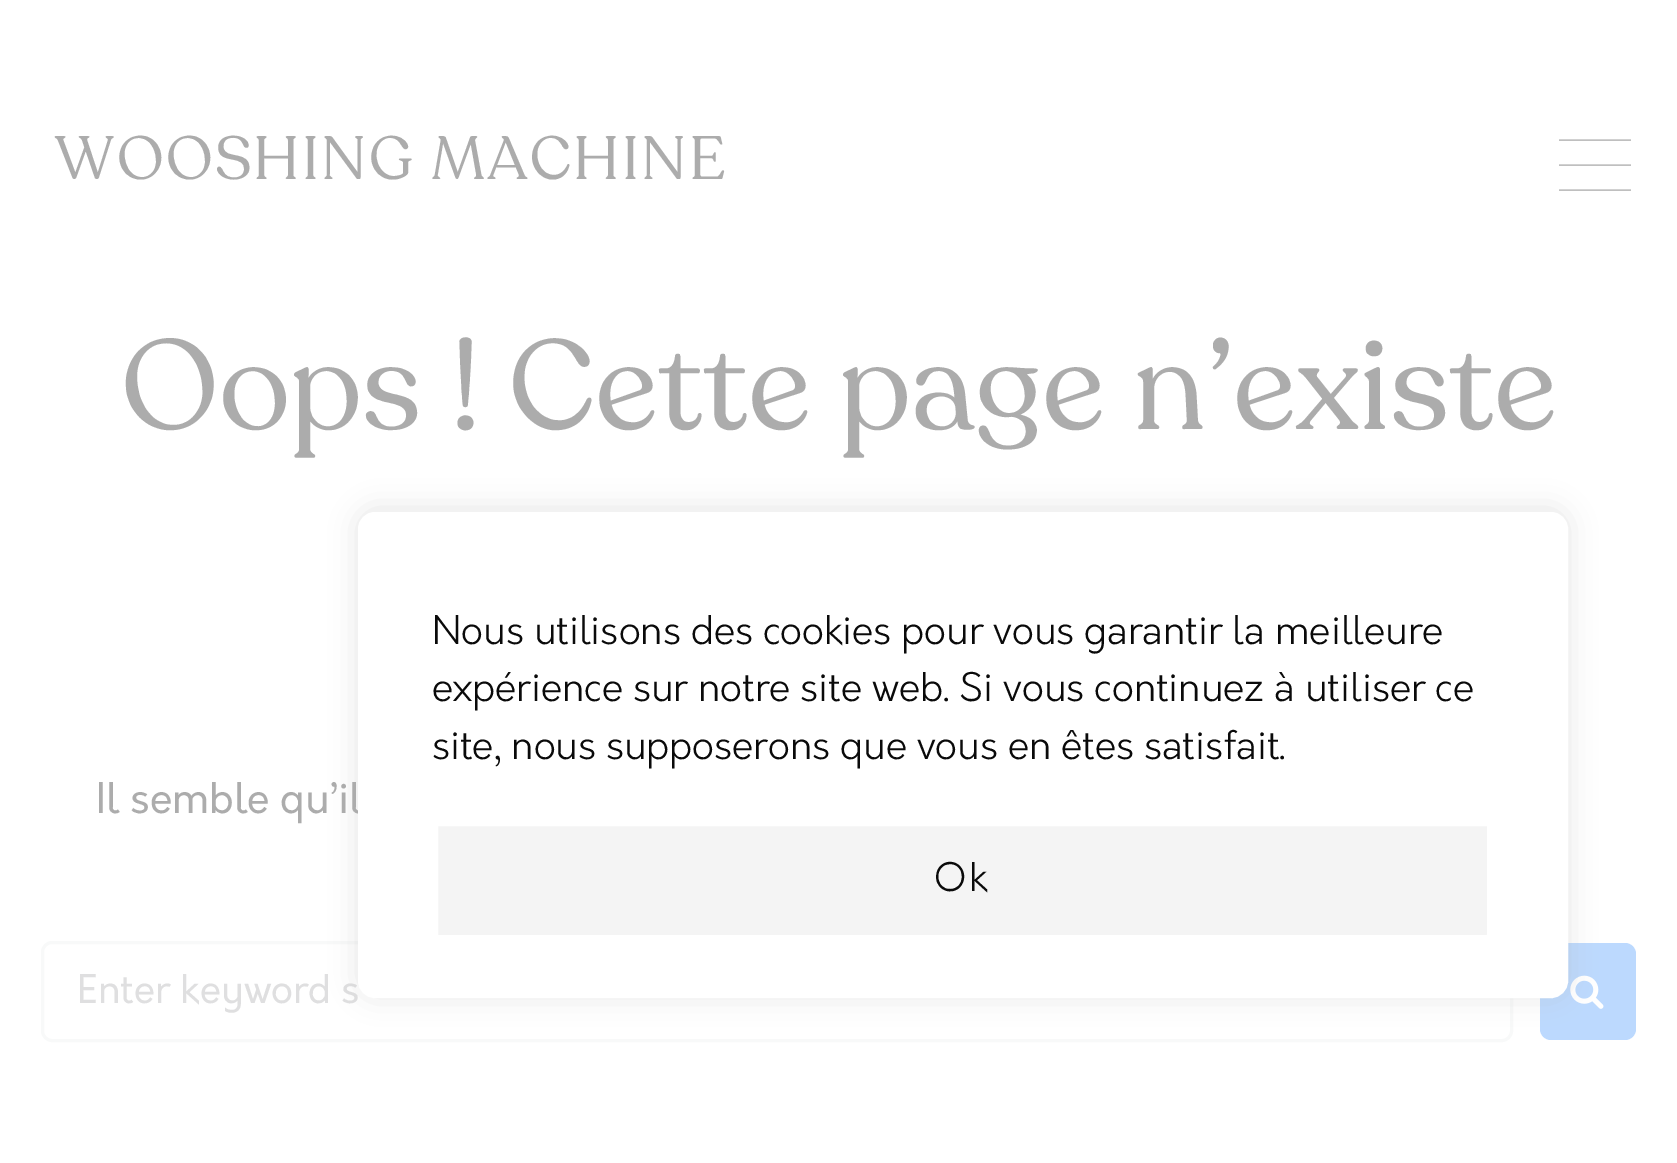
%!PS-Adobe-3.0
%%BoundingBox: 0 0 1677 1163
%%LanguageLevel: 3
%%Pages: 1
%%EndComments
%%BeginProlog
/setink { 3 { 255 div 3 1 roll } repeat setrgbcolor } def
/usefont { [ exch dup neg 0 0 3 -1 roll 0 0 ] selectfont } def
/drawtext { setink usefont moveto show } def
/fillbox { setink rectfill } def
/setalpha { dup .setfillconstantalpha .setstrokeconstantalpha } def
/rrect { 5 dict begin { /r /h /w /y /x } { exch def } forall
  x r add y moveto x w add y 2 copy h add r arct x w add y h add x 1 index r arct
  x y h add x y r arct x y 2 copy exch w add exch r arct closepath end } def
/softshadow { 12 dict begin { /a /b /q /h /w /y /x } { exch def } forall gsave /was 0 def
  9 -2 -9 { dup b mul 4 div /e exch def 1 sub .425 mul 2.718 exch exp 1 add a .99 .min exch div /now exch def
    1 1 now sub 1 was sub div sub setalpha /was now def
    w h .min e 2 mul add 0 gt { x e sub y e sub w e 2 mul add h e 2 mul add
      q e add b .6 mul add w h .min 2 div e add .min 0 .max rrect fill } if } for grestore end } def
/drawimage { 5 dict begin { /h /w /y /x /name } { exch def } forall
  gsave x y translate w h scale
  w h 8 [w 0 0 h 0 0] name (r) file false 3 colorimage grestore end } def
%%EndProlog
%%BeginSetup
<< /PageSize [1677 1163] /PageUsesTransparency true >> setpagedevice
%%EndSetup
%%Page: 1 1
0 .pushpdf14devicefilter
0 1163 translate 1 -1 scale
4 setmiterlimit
0 0 1677 1163 255 255 255 fillbox
/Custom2-Regular 60.5 usefont
172 172 172 setink
55 179 moveto 2.25 0 (WOOSHING MACHINE) ashow
168 168 168 setink
1.1 setlinewidth
1559 140 moveto 1631 140 lineto stroke
1559 165 moveto 1631 165 lineto stroke
1559 190 moveto 1631 190 lineto stroke
(Oops ! Cette page n’existe) 121 429 /Custom2-Regular 126.5 172 172 172 drawtext
(Il semble qu’il) 96 813 /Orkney-Regular 41.25 172 172 172 drawtext
248 249 249 setink
3 setlinewidth
42.5 942.5 1469 98 9.5 rrect stroke
(Enter keyword s) 77 1003 /Orkney-Regular 38.5 223 223 224 drawtext
188 217 254 setink
1540 943 96 97 11 rrect fill
(assets/img1.rgb) 1570 975 34 34 drawimage
172 171 171 setink
358 509 1210 487 17 14 0.3 softshadow
255 255 255 setink
359.5 513.5 1207 483 15.5 rrect gsave fill grestore
stroke
(Nous utilisons des cookies pour vous garantir la meilleure) 432 644 /Orkney-Light 38.5 10 10 10 drawtext
(expérience sur notre site web. Si vous continuez à utiliser ce) 432 701 /Orkney-Light 38.5 10 10 10 drawtext
(site, nous supposerons que vous en êtes satisfait.) 432 759 /Orkney-Light 38.5 10 10 10 drawtext
244 244 244 setink
435 823 1055 115 3 rrect gsave fill grestore
255 255 255 setink
6 setlinewidth
stroke
10 10 10 setink
934 891 moveto 3 0 (Ok) ashow
.poppdf14devicefilter showpage
%%EOF
